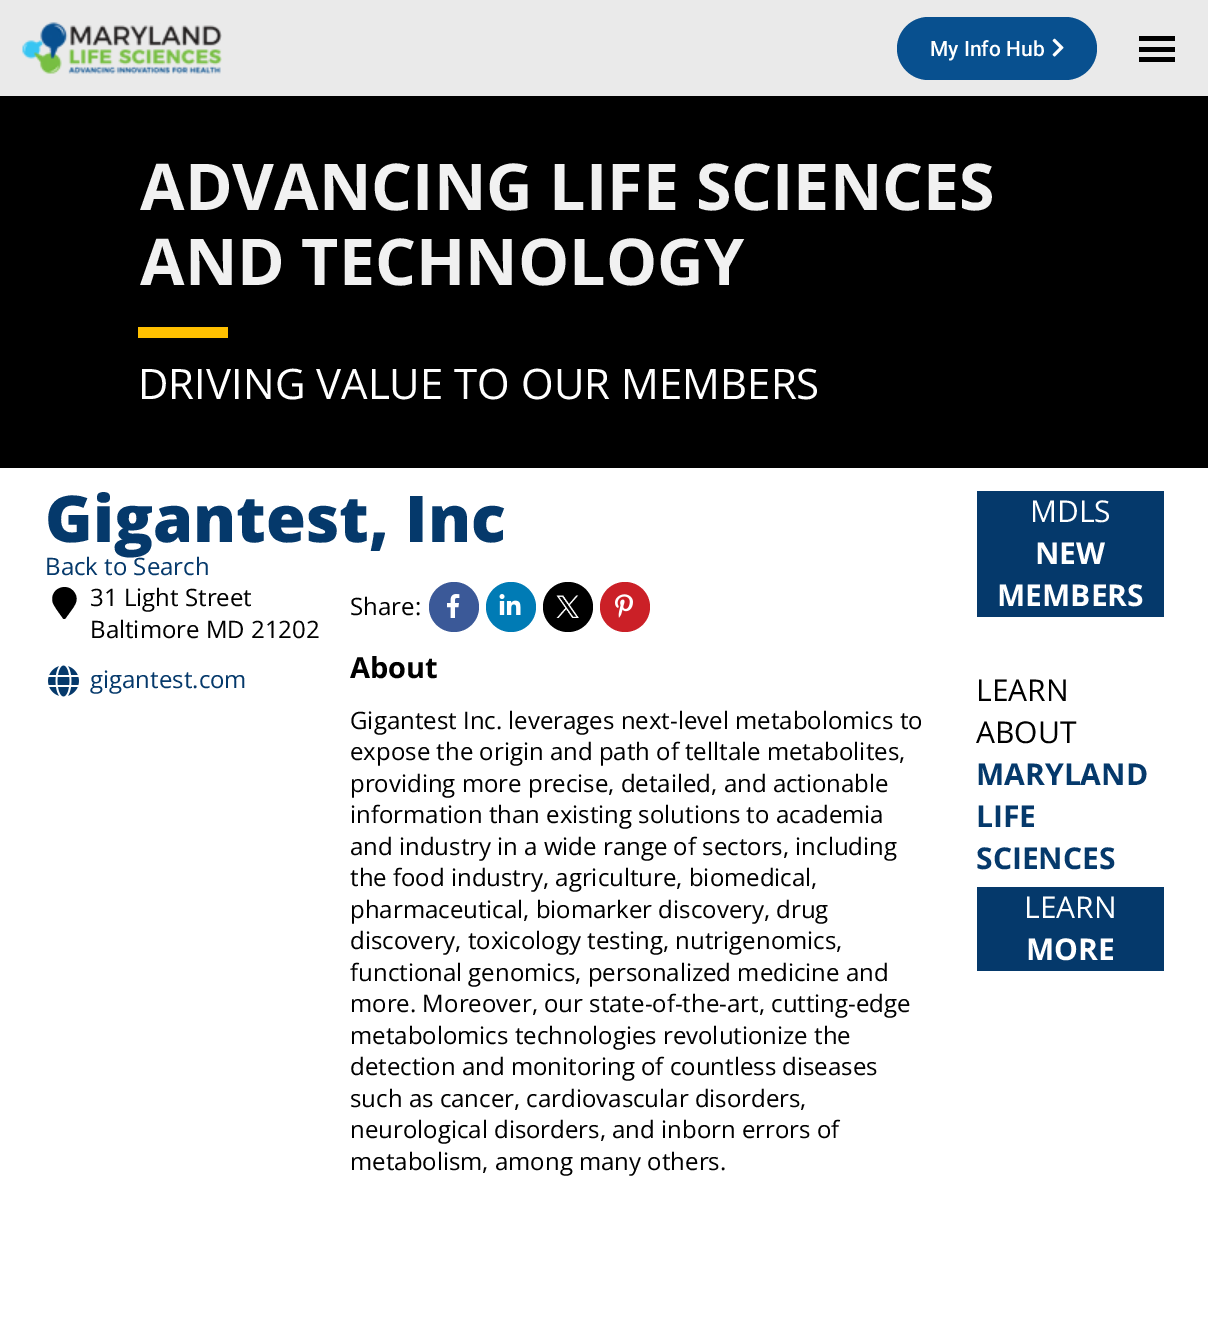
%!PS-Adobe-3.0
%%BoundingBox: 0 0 1208 1321
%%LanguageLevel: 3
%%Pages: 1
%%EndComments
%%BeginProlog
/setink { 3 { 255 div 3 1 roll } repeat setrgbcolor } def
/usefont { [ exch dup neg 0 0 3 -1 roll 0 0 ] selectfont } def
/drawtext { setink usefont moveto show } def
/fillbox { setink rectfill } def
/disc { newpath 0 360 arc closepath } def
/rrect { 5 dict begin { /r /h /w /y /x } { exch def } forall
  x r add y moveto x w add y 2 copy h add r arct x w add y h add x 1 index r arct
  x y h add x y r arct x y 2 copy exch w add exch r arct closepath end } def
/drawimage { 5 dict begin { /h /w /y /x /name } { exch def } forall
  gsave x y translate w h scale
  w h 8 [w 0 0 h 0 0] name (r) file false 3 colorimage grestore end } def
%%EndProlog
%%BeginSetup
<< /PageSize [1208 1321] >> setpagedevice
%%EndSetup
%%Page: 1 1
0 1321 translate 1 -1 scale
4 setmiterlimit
0 0 1208 1321 255 255 255 fillbox
0 0 1208 96 234 234 234 fillbox
(assets/img1.rgb) 22 22 200 52 drawimage
8 80 143 setink
897 17 200 63 31.5 rrect fill
(My Info Hub) 930 56 /Roboto-Medium 21 255 255 255 drawtext
(assets/img2.rgb) 1052 38 12 19 drawimage
1139 36 36 5 0 0 0 fillbox
1139 47 36 5 0 0 0 fillbox
1139 57 36 5 0 0 0 fillbox
0 96 1208 372 0 0 0 fillbox
(ADVANCING LIFE SCIENCES) 140 210 /OpenSans-Bold 64.5 241 241 241 drawtext
(AND TECHNOLOGY) 140 285 /OpenSans-Bold 64.5 241 241 241 drawtext
138 327 90 11 255 192 0 fillbox
(DRIVING VALUE TO OUR MEMBERS) 138 399 /OpenSans-Regular 42 255 255 255 drawtext
(Gigantest, Inc) 45 542 /OpenSans-ExtraBold 64.5 5 57 107 drawtext
(Back to Search) 45 575 /OpenSans-Regular 24 5 57 107 drawtext
0 0 0 setink
63 618.5 moveto 60.5 614.5 53.5 606 52.5 601.5 curveto 50 588.5 67 581.5 74.5 592.5 curveto 80 600.5 73.5 607 69 613.5 curveto 65 619 lineto 64.5 619 63.5 619 63 618.5 curveto closepath fill
(31 Light Street) 90 606 /OpenSans-Regular 24 0 0 0 drawtext
(Baltimore MD 21202) 90 638 /OpenSans-Regular 24 0 0 0 drawtext
(assets/img3.rgb) 48 665 31 32 drawimage
(gigantest.com) 90 688 /OpenSans-Regular 24 5 57 107 drawtext
(Share:) 350 615 /OpenSans-Regular 24 0 0 0 drawtext
59 89 152 setink
454 607 25 disc fill
(assets/img4.rgb) 447 594 13 24 drawimage
0 123 181 setink
511 607 25 disc fill
(assets/img5.rgb) 499 594 22 21 drawimage
0 0 0 setink
568 607 25 disc fill
(assets/img6.rgb) 556 595 23 23 drawimage
203 32 39 setink
625 607 25 disc fill
(assets/img7.rgb) 615 594 18 24 drawimage
(About) 350 678 /OpenSans-Bold 29 0 0 0 drawtext
(Gigantest Inc. leverages next-level metabolomics to) 350 729 /OpenSans-Regular 24 0 0 0 drawtext
(expose the origin and path of telltale metabolites,) 350 760 /OpenSans-Regular 24 0 0 0 drawtext
(providing more precise, detailed, and actionable) 350 792 /OpenSans-Regular 24 0 0 0 drawtext
(information than existing solutions to academia) 350 823 /OpenSans-Regular 24 0 0 0 drawtext
(and industry in a wide range of sectors, including) 350 855 /OpenSans-Regular 24 0 0 0 drawtext
(the food industry, agriculture, biomedical,) 350 886 /OpenSans-Regular 24 0 0 0 drawtext
(pharmaceutical, biomarker discovery, drug) 350 918 /OpenSans-Regular 24 0 0 0 drawtext
(discovery, toxicology testing, nutrigenomics,) 350 949 /OpenSans-Regular 24 0 0 0 drawtext
(functional genomics, personalized medicine and) 350 981 /OpenSans-Regular 24 0 0 0 drawtext
(more. Moreover, our state-of-the-art, cutting-edge) 350 1012 /OpenSans-Regular 24 0 0 0 drawtext
(metabolomics technologies revolutionize the) 350 1044 /OpenSans-Regular 24 0 0 0 drawtext
(detection and monitoring of countless diseases) 350 1075 /OpenSans-Regular 24 0 0 0 drawtext
(such as cancer, cardiovascular disorders,) 350 1107 /OpenSans-Regular 24 0 0 0 drawtext
(neurological disorders, and inborn errors of) 350 1138 /OpenSans-Regular 24 0 0 0 drawtext
(metabolism, among many others.) 350 1170 /OpenSans-Regular 24 0 0 0 drawtext
977 491 187 126 5 57 107 fillbox
(MDLS) 1030 522 /OpenSans-Regular 30 255 255 255 drawtext
(NEW) 1035 564 /OpenSans-Bold 30 255 255 255 drawtext
(MEMBERS) 997 606 /OpenSans-Bold 30 255 255 255 drawtext
(LEARN) 976 701 /OpenSans-Regular 30 0 0 0 drawtext
(ABOUT) 976 743 /OpenSans-Regular 30 0 0 0 drawtext
(MARYLAND) 976 785 /OpenSans-Bold 30 5 57 107 drawtext
(LIFE) 976 827 /OpenSans-Bold 30 5 57 107 drawtext
(SCIENCES) 976 869 /OpenSans-Bold 30 5 57 107 drawtext
977 887 187 84 5 57 107 fillbox
(LEARN) 1024 918 /OpenSans-Regular 30 255 255 255 drawtext
(MORE) 1026 960 /OpenSans-Bold 30 255 255 255 drawtext
showpage
%%EOF
